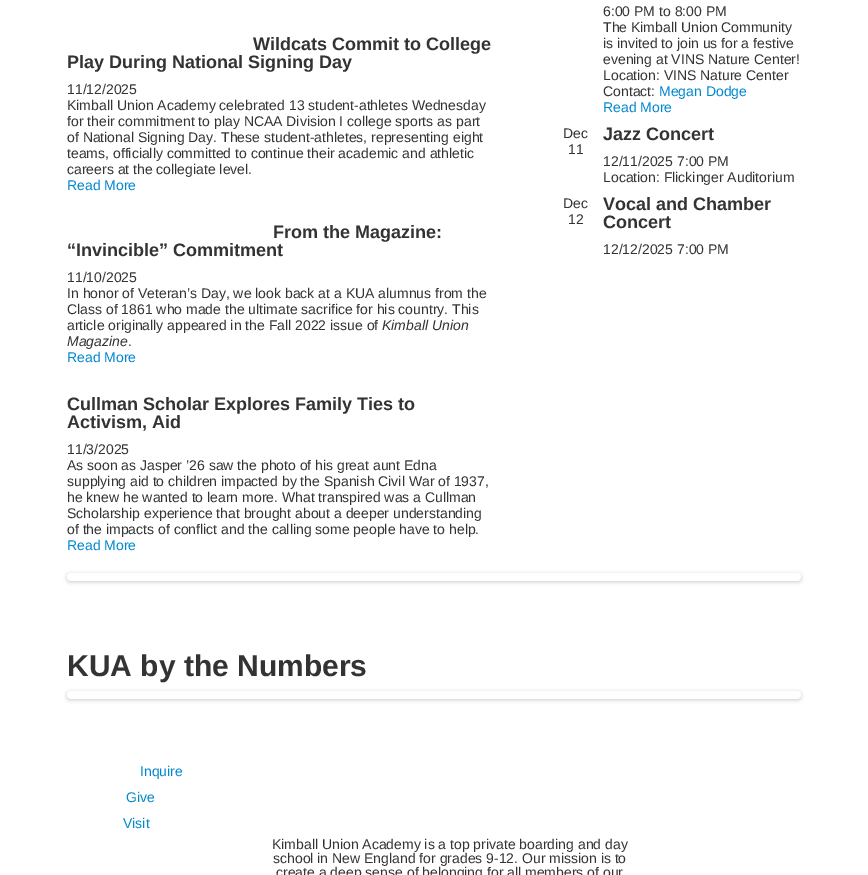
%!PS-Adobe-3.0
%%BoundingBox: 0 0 868 875
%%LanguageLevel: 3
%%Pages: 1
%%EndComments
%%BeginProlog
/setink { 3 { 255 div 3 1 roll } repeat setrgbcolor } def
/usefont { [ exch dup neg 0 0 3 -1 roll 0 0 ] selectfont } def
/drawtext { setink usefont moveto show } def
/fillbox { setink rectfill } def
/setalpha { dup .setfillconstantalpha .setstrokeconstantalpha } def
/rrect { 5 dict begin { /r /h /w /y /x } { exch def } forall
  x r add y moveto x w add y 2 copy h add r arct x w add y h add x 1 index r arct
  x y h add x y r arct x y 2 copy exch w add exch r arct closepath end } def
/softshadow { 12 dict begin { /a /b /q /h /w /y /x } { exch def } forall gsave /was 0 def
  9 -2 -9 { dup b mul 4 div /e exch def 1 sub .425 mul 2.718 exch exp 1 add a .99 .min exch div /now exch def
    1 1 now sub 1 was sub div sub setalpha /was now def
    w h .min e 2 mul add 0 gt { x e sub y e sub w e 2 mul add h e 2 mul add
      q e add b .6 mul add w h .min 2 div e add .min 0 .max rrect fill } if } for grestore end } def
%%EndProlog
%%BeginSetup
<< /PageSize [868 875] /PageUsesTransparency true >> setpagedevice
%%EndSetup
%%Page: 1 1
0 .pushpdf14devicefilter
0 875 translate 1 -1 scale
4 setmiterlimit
0 0 868 875 255 255 255 fillbox
(Wildcats Commit to College) 253 50 /LiberationSans-Bold 18 51 51 51 drawtext
(Play During National Signing Day) 67 68 /LiberationSans-Bold 18 51 51 51 drawtext
(11/12/2025) 67 94 /LiberationSans-Regular 14 51 51 51 drawtext
(Kimball Union Academy celebrated 13 student-athletes Wednesday) 67 110 /LiberationSans-Regular 14 51 51 51 drawtext
(for their commitment to play NCAA Division I college sports as part) 67 126 /LiberationSans-Regular 14 51 51 51 drawtext
(of National Signing Day. These student-athletes, representing eight) 67 142 /LiberationSans-Regular 14 51 51 51 drawtext
(teams, officially committed to continue their academic and athletic) 67 158 /LiberationSans-Regular 14 51 51 51 drawtext
(careers at the collegiate level.) 67 174 /LiberationSans-Regular 14 51 51 51 drawtext
(Read More) 67 190 /LiberationSans-Regular 14 0 136 204 drawtext
(From the Magazine:) 273 238 /LiberationSans-Bold 18 51 51 51 drawtext
(“Invincible” Commitment) 67 256 /LiberationSans-Bold 18 51 51 51 drawtext
(11/10/2025) 67 282 /LiberationSans-Regular 14 51 51 51 drawtext
(In honor of Veteran’s Day, we look back at a KUA alumnus from the) 67 298 /LiberationSans-Regular 14 51 51 51 drawtext
(Class of 1861 who made the ultimate sacrifice for his country. This) 67 314 /LiberationSans-Regular 14 51 51 51 drawtext
(article originally appeared in the Fall 2022 issue of) 67 330 /LiberationSans-Regular 14 51 51 51 drawtext
(Kimball Union) 382 330 /LiberationSans-Italic 14 51 51 51 drawtext
(Magazine) 67 346 /LiberationSans-Italic 14 51 51 51 drawtext
(.) 128 346 /LiberationSans-Regular 14 51 51 51 drawtext
(Read More) 67 362 /LiberationSans-Regular 14 0 136 204 drawtext
(Cullman Scholar Explores Family Ties to) 67 410 /LiberationSans-Bold 18 51 51 51 drawtext
(Activism, Aid) 67 428 /LiberationSans-Bold 18 51 51 51 drawtext
(11/3/2025) 67 454 /LiberationSans-Regular 14 51 51 51 drawtext
(As soon as Jasper ’26 saw the photo of his great aunt Edna) 67 470 /LiberationSans-Regular 14 51 51 51 drawtext
(supplying aid to children impacted by the Spanish Civil War of 1937,) 67 486 /LiberationSans-Regular 14 51 51 51 drawtext
(he knew he wanted to learn more. What transpired was a Cullman) 67 502 /LiberationSans-Regular 14 51 51 51 drawtext
(Scholarship experience that brought about a deeper understanding) 67 518 /LiberationSans-Regular 14 51 51 51 drawtext
(of the impacts of conflict and the calling some people have to help.) 67 534 /LiberationSans-Regular 14 51 51 51 drawtext
(Read More) 67 550 /LiberationSans-Regular 14 0 136 204 drawtext
(6:00 PM to 8:00 PM) 603 16 /LiberationSans-Regular 14 51 51 51 drawtext
(The Kimball Union Community) 603 32 /LiberationSans-Regular 14 51 51 51 drawtext
(is invited to join us for a festive) 603 48 /LiberationSans-Regular 14 51 51 51 drawtext
(evening at VINS Nature Center!) 603 64 /LiberationSans-Regular 14 51 51 51 drawtext
(Location: VINS Nature Center) 603 80 /LiberationSans-Regular 14 51 51 51 drawtext
(Contact:) 603 96 /LiberationSans-Regular 14 51 51 51 drawtext
(Megan Dodge) 659 96 /LiberationSans-Regular 14 0 136 204 drawtext
(Read More) 603 112 /LiberationSans-Regular 14 0 136 204 drawtext
(Dec) 563 138 /LiberationSans-Regular 14 51 51 51 drawtext
(11) 568 154 /LiberationSans-Regular 14 51 51 51 drawtext
(Jazz Concert) 603 140 /LiberationSans-Bold 18 51 51 51 drawtext
(12/11/2025 7:00 PM) 603 166 /LiberationSans-Regular 14 51 51 51 drawtext
(Location: Flickinger Auditorium) 603 182 /LiberationSans-Regular 14 51 51 51 drawtext
(Dec) 563 208 /LiberationSans-Regular 14 51 51 51 drawtext
(12) 568 224 /LiberationSans-Regular 14 51 51 51 drawtext
(Vocal and Chamber) 603 210 /LiberationSans-Bold 18 51 51 51 drawtext
(Concert) 603 228 /LiberationSans-Bold 18 51 51 51 drawtext
(12/12/2025 7:00 PM) 603 254 /LiberationSans-Regular 14 51 51 51 drawtext
0 0 0 setink
67 574 734 8 4 2 0.2 softshadow
255 255 255 setink
67 573 734 8 4 rrect fill
(KUA by the Numbers) 67 676 /LiberationSans-Bold 30 51 51 51 drawtext
0 0 0 setink
67 692 734 8 4 2 0.2 softshadow
255 255 255 setink
67 691 734 8 4 rrect fill
(Inquire) 140 776 /LiberationSans-Regular 14 0 136 204 drawtext
(Give) 126 802 /LiberationSans-Regular 14 0 136 204 drawtext
(Visit) 123 828 /LiberationSans-Regular 14 0 136 204 drawtext
(Kimball Union Academy is a top private boarding and day) 272 849 /LiberationSans-Regular 14 51 51 51 drawtext
(school in New England for grades 9-12. Our mission is to) 273 863 /LiberationSans-Regular 14 51 51 51 drawtext
(create a deep sense of belonging for all members of our) 276 877 /LiberationSans-Regular 14 51 51 51 drawtext
.poppdf14devicefilter showpage
%%EOF
